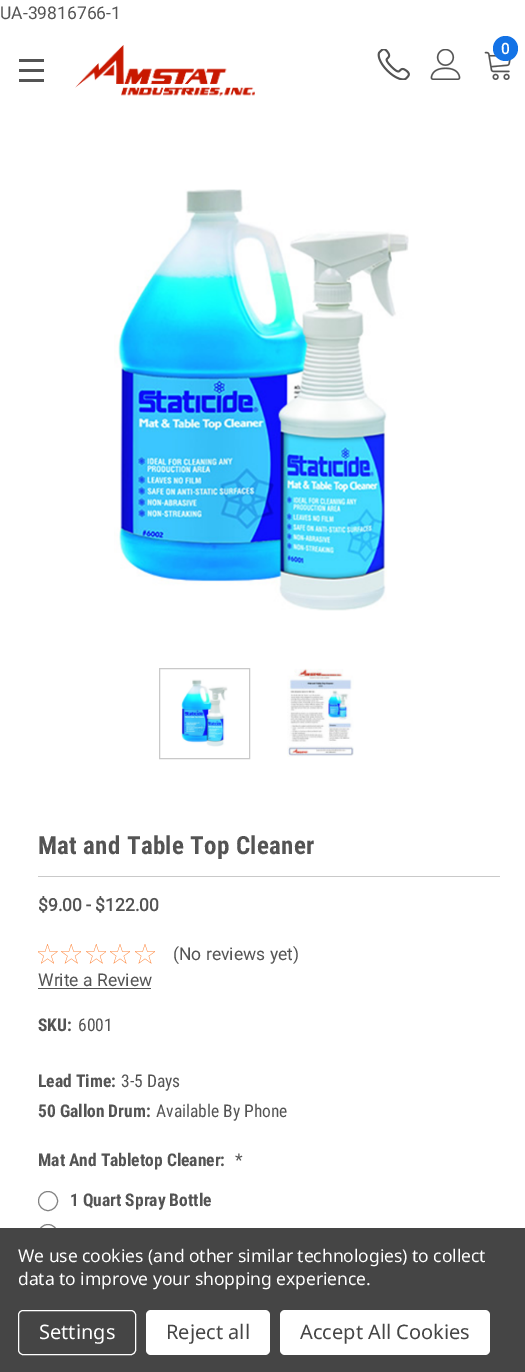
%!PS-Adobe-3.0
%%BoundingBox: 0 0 525 1372
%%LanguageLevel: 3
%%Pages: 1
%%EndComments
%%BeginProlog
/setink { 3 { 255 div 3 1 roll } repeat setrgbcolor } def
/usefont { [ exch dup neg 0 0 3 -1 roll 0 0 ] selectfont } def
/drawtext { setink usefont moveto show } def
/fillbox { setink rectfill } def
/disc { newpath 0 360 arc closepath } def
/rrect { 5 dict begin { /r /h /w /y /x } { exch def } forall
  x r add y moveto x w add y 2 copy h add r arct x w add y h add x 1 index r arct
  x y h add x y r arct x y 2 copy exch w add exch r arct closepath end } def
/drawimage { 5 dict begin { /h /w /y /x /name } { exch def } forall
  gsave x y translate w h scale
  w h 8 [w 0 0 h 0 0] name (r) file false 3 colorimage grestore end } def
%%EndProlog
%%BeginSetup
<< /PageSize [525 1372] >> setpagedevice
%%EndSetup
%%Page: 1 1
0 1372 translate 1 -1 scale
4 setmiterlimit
0 0 525 1372 255 255 255 fillbox
(UA-39816766-1) 0 19 /Roboto-Regular 17.5 84 84 84 drawtext
(assets/img1.rgb) 75 45 180 52 drawimage
(assets/img2.rgb) 377 49 33 31 drawimage
(assets/img3.rgb) 430 49 31 31 drawimage
(assets/img4.rgb) 484 51 27 29 drawimage
20 115 230 setink
505.5 48.5 12.5 disc fill
(0) 501 54 /Roboto-Bold 15 255 255 255 drawtext
19 69 25 3 84 84 84 fillbox
19 59 25 3 84 84 84 fillbox
19 79 25 3 84 84 84 fillbox
(assets/img5.rgb) 114 189 295 422 drawimage
201 201 201 setink
159.5 668.5 90 90 rectstroke
(assets/img6.rgb) 181 679 47 68 drawimage
(assets/img7.rgb) 287 668 67 89 drawimage
38 876 462 1 201 201 201 fillbox
/RobotoCondensed-Bold 25 usefont
84 84 84 setink
38 854 moveto 0.3 0 (Mat and Table Top Cleaner) ashow
($9.00 - $122.00) 38 911 /Roboto-Bold 17.5 84 84 84 drawtext
(assets/img8.rgb) 38 944 20 20 drawimage
(assets/img9.rgb) 61 944 20 20 drawimage
(assets/img9.rgb) 86 944 20 20 drawimage
(assets/img10.rgb) 110 944 20 20 drawimage
(assets/img10.rgb) 135 944 20 20 drawimage
(\(No reviews yet\)) 173 960 /Roboto-Regular 17.5 84 84 84 drawtext
(Write a Review) 38 986 /Roboto-Regular 17.5 84 84 84 drawtext
38 988 113 1 84 84 84 fillbox
(SKU:) 38 1031 /RobotoCondensed-Bold 17.5 84 84 84 drawtext
(6001) 78 1031 /RobotoCondensed-Regular 17.5 84 84 84 drawtext
(Lead Time:) 38 1087 /RobotoCondensed-Bold 17.5 84 84 84 drawtext
(3-5 Days) 121 1087 /RobotoCondensed-Regular 17.5 84 84 84 drawtext
(50 Gallon Drum:) 38 1117 /RobotoCondensed-Bold 17.5 84 84 84 drawtext
(Available By Phone) 156 1117 /RobotoCondensed-Regular 17.5 84 84 84 drawtext
(Mat And Tabletop Cleaner:) 38 1166 /RobotoCondensed-Bold 17.5 84 84 84 drawtext
(*) 235 1166 /RobotoCondensed-Regular 17.5 84 84 84 drawtext
130 130 130 setink
48 1201 9.5 disc stroke
(1 Quart Spray Bottle) 70 1206 /RobotoCondensed-Bold 17.5 84 84 84 drawtext
130 130 130 setink
48 1234 9.5 disc stroke
0 1228 525 144 69 69 69 fillbox
/NotoSans-Regular 17.5 usefont
255 255 255 setink
18 1262 moveto -0.05 0 (We use cookies \(and other similar technologies\) to collect) ashow
18 1285 moveto -0.05 0 (data to improve your shopping experience.) ashow
18.5 1310.5 117 44 4.5 rrect stroke
(Settings) 39 1339 /NotoSans-Regular 20 255 255 255 drawtext
146 1310 124 45 5 rrect fill
(Reject all) 166 1339 /NotoSans-Regular 20 69 69 69 drawtext
255 255 255 setink
280 1310 210 45 5 rrect fill
(Accept All Cookies) 300 1339 /NotoSans-Regular 20 69 69 69 drawtext
showpage
%%EOF
